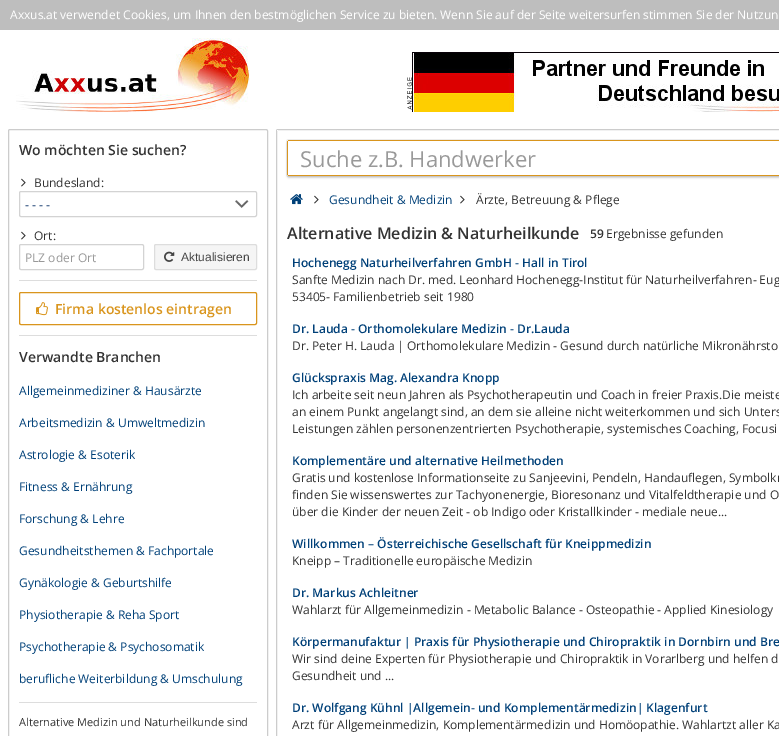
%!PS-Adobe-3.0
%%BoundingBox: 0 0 779 736
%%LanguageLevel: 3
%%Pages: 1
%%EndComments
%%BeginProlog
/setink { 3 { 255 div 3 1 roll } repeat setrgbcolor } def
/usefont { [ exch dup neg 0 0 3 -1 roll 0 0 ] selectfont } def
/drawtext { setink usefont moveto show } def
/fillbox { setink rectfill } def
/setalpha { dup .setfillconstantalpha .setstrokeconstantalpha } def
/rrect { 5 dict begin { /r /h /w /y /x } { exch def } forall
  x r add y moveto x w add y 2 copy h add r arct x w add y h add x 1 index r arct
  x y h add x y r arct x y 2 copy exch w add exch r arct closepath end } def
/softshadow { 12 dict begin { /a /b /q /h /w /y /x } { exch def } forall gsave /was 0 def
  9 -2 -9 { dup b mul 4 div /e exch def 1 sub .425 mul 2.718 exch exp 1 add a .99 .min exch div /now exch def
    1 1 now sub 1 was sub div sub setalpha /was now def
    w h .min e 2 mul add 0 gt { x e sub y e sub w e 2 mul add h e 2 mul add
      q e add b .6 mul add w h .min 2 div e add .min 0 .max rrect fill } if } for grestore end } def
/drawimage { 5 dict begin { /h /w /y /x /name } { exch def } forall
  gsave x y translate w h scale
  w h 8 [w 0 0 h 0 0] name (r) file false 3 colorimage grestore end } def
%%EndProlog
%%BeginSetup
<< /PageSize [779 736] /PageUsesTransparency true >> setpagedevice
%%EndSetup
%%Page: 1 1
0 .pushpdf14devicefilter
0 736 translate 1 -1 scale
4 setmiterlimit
0 0 779 736 255 255 255 fillbox
0 0 779 30 190 190 190 fillbox
(Axxus.at verwendet Cookies, um Ihnen den bestmöglichen Service zu bieten. Wenn Sie auf der Seite weitersurfen stimmen Sie der Nutzun) 10 19 /OpenSans-Regular 12 255 255 255 drawtext
(assets/img1.rgb) 16 38 234 74 drawimage
(assets/img2.rgb) 407 77 5 33 drawimage
(assets/img3.rgb) 412 52 367 60 drawimage
204 204 204 setink
8.5 129.5 259 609 1.5 rrect stroke
(Wo möchten Sie suchen?) 19 155 /OpenSans-SemiBold 14 51 51 51 drawtext
(assets/img4.rgb) 21 178 5 9 drawimage
(Bundesland:) 34 187 /OpenSans-Regular 12 51 51 51 drawtext
(assets/img5.rgb) 235 200 14 8 drawimage
211 211 211 setink
19.5 191.5 237 25 1.5 rrect stroke
(- - - -) 25 209 /OpenSans-Regular 12 32 68 117 drawtext
(assets/img4.rgb) 21 231 5 9 drawimage
(Ort:) 34 240 /OpenSans-Regular 12 51 51 51 drawtext
211 211 211 setink
19.5 244.5 124 25 1.5 rrect stroke
(PLZ oder Ort) 25 262 /OpenSans-Regular 12 153 153 153 drawtext
245 245 245 setink
154.5 244.5 102 25 1.5 rrect gsave fill grestore
221 221 221 setink
stroke
(assets/img6.rgb) 164 251 11 11 drawimage
(Aktualisieren) 181 261 /LiberationSans-Regular 12 68 68 68 drawtext
19 280 238 1 221 221 221 fillbox
217 149 29 setink
19.5 292.5 237 32 1.5 rrect stroke
(assets/img7.rgb) 36 302 12 14 drawimage
(Firma kostenlos eintragen) 55 314 /OpenSans-SemiBold 14 217 149 29 drawtext
19 335 238 1 221 221 221 fillbox
(Verwandte Branchen) 19 362 /OpenSans-SemiBold 14 51 51 51 drawtext
(Allgemeinmediziner & Hausärzte) 19 395 /OpenSans-Regular 12 0 64 120 drawtext
(Arbeitsmedizin & Umweltmedizin) 19 427 /OpenSans-Regular 12 0 64 120 drawtext
(Astrologie & Esoterik) 19 459 /OpenSans-Regular 12 0 64 120 drawtext
(Fitness & Ernährung) 19 491 /OpenSans-Regular 12 0 64 120 drawtext
(Forschung & Lehre) 19 523 /OpenSans-Regular 12 0 64 120 drawtext
(Gesundheitsthemen & Fachportale) 19 555 /OpenSans-Regular 12 0 64 120 drawtext
(Gynäkologie & Geburtshilfe) 19 587 /OpenSans-Regular 12 0 64 120 drawtext
(Physiotherapie & Reha Sport) 19 619 /OpenSans-Regular 12 0 64 120 drawtext
(Psychotherapie & Psychosomatik) 19 651 /OpenSans-Regular 12 0 64 120 drawtext
(berufliche Weiterbildung & Umschulung) 19 683 /OpenSans-Regular 12 0 64 120 drawtext
19 702 238 1 221 221 221 fillbox
(Alternative Medizin und Naturheilkunde sind) 19 726 /OpenSans-Regular 11 51 51 51 drawtext
204 204 204 setink
276.5 129.5 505 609 1.5 rrect stroke
277 130 1 1 255 255 255 fillbox
235 235 235 setink
289 139.5 moveto 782.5 139.5 lineto 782.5 176.5 lineto 289 176.5 lineto 287.5 176.5 286.5 175.5 286.5 174 curveto 286.5 142 lineto 286.5 140.5 287.5 139.5 289 139.5 curveto closepath stroke
gsave
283 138 moveto 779 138 lineto 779 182 lineto 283 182 lineto closepath 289 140 moveto 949 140 lineto 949 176 lineto 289 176 lineto 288 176 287 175 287 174 curveto 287 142 lineto 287 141 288 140 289 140 curveto closepath eoclip newpath
0 0 0 setink
287 142 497 36 2 1 0.16 softshadow
grestore
288 140 491 1 217 149 29 fillbox
288 175 491 1 217 149 29 fillbox
287 141 1 34 217 149 29 fillbox
(Suche z.B. Handwerker) 300 167 /OpenSans-Regular 22 153 153 153 drawtext
(assets/img8.rgb) 290 194 13 11 drawimage
(assets/img4.rgb) 314 195 5 9 drawimage
(Gesundheit & Medizin) 329 204 /OpenSans-Regular 12 0 64 120 drawtext
(assets/img4.rgb) 460 195 5 9 drawimage
(Ärzte, Betreuung & Pflege) 476 204 /OpenSans-Regular 12 51 51 51 drawtext
(Alternative Medizin & Naturheilkunde) 287 239 /OpenSans-SemiBold 16 51 51 51 drawtext
(59) 590 238 /OpenSans-SemiBold 12 51 51 51 drawtext
(Ergebnisse gefunden) 606 238 /OpenSans-Regular 12 51 51 51 drawtext
(Hochenegg Naturheilverfahren GmbH - Hall in Tirol) 292 267 /OpenSans-SemiBold 12 0 64 120 drawtext
(Sanfte Medizin nach Dr. med. Leonhard Hochenegg-Institut für Naturheilverfahren- Eug) 292 284 /OpenSans-Regular 12 51 51 51 drawtext
(53405- Familienbetrieb seit 1980) 292 301 /OpenSans-Regular 12 51 51 51 drawtext
(Dr. Lauda - Orthomolekulare Medizin - Dr.Lauda) 292 333 /OpenSans-SemiBold 12 0 64 120 drawtext
(Dr. Peter H. Lauda | Orthomolekulare Medizin - Gesund durch natürliche Mikronährsto) 292 350 /OpenSans-Regular 12 51 51 51 drawtext
(Glückspraxis Mag. Alexandra Knopp) 292 382 /OpenSans-SemiBold 12 0 64 120 drawtext
(Ich arbeite seit neun Jahren als Psychotherapeutin und Coach in freier Praxis.Die meiste) 292 399 /OpenSans-Regular 12 51 51 51 drawtext
(an einem Punkt angelangt sind, an dem sie alleine nicht weiterkommen und sich Unters) 292 416 /OpenSans-Regular 12 51 51 51 drawtext
(Leistungen zählen personenzentrierten Psychotherapie, systemisches Coaching, Focusi) 292 433 /OpenSans-Regular 12 51 51 51 drawtext
(Komplementäre und alternative Heilmethoden) 292 465 /OpenSans-SemiBold 12 0 64 120 drawtext
(Gratis und kostenlose Informationseite zu Sanjeevini, Pendeln, Handauflegen, Symbolkr) 292 482 /OpenSans-Regular 12 51 51 51 drawtext
(finden Sie wissenswertes zur Tachyonenergie, Bioresonanz und Vitalfeldtherapie und O) 292 499 /OpenSans-Regular 12 51 51 51 drawtext
(über die Kinder der neuen Zeit - ob Indigo oder Kristallkinder - mediale neue...) 292 516 /OpenSans-Regular 12 51 51 51 drawtext
(Willkommen – Österreichische Gesellschaft für Kneippmedizin) 292 548 /OpenSans-SemiBold 12 0 64 120 drawtext
(Kneipp – Traditionelle europäische Medizin) 292 565 /OpenSans-Regular 12 51 51 51 drawtext
(Dr. Markus Achleitner) 292 597 /OpenSans-SemiBold 12 0 64 120 drawtext
(Wahlarzt für Allgemeinmedizin - Metabolic Balance - Osteopathie - Applied Kinesiology) 292 614 /OpenSans-Regular 12 51 51 51 drawtext
(Körpermanufaktur | Praxis für Physiotherapie und Chiropraktik in Dornbirn und Bre) 292 646 /OpenSans-SemiBold 12 0 64 120 drawtext
(Wir sind deine Experten für Physiotherapie und Chiropraktik in Vorarlberg und helfen d) 292 663 /OpenSans-Regular 12 51 51 51 drawtext
(Gesundheit und ...) 292 680 /OpenSans-Regular 12 51 51 51 drawtext
(Dr. Wolfgang Kühnl |Allgemein- und Komplementärmedizin| Klagenfurt) 292 712 /OpenSans-SemiBold 12 0 64 120 drawtext
(Arzt für Allgemeinmedizin, Komplementärmedizin und Homöopathie. Wahlartzt aller Ka) 292 729 /OpenSans-Regular 12 51 51 51 drawtext
.poppdf14devicefilter showpage
%%EOF
